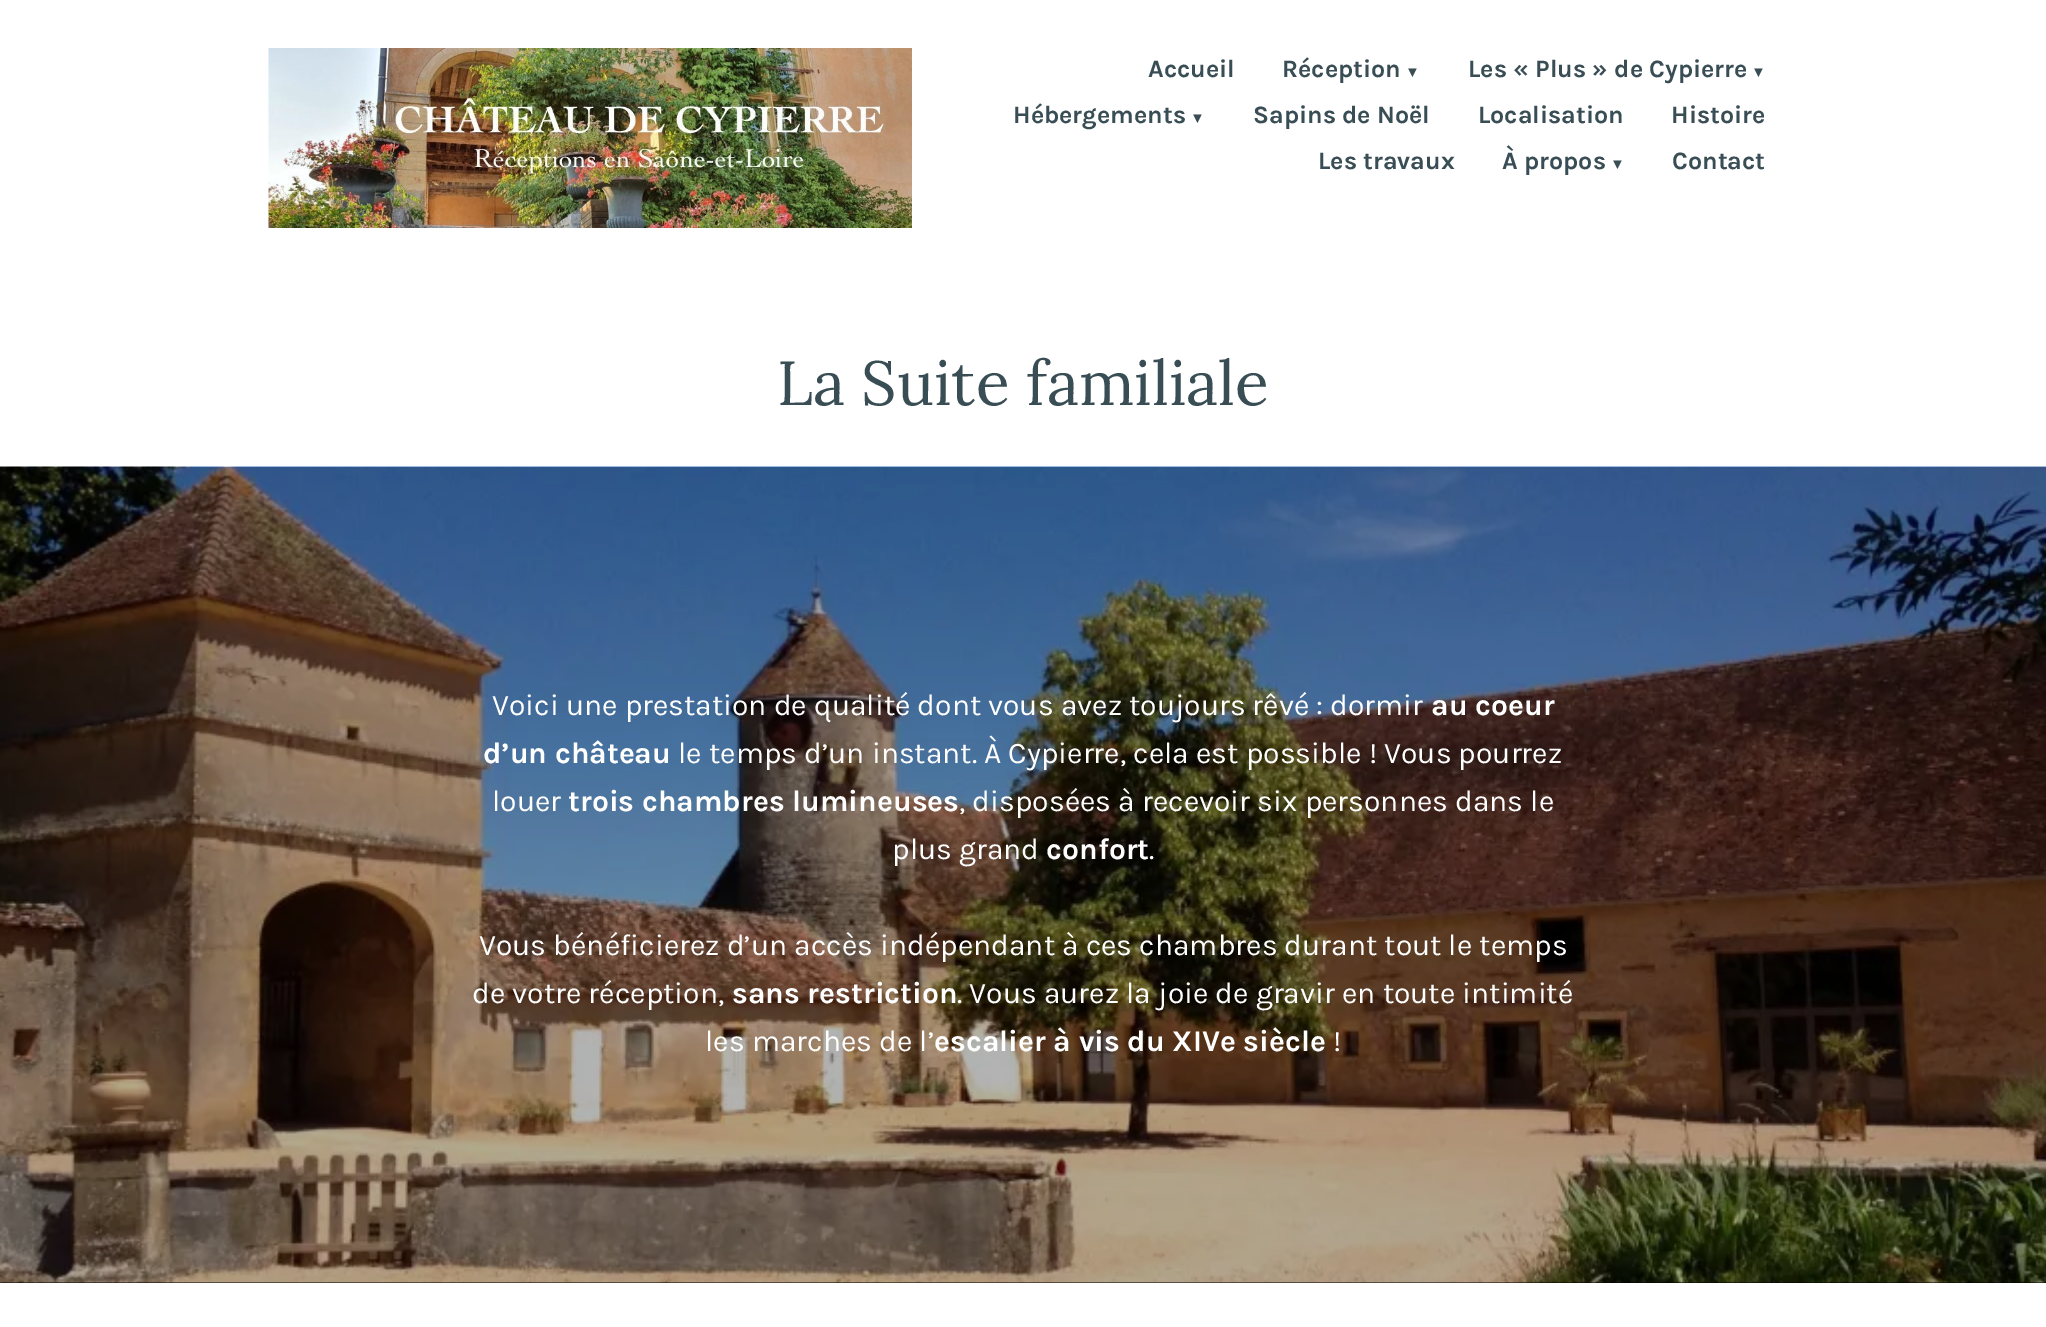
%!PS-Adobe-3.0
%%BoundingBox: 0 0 2046 1327
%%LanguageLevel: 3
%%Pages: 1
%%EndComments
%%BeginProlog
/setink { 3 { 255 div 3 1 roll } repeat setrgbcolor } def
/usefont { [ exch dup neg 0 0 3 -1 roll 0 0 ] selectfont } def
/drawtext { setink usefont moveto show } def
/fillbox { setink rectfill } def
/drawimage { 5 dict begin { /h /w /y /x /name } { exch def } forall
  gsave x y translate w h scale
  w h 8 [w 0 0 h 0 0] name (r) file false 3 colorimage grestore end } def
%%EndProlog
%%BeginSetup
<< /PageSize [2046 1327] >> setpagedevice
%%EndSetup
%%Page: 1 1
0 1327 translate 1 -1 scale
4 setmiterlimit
0 0 2046 1327 255 255 255 fillbox
(assets/img1.rgb) 268 48 644 180 drawimage
(Accueil) 1148 77 /Karla-Bold 25 57 77 85 drawtext
(Réception) 1282 77 /Karla-Bold 25 57 77 85 drawtext
(▼) 1405 77 /LiberationSans-Bold 15 57 77 85 drawtext
(Les « Plus » de Cypierre) 1468 77 /Karla-Bold 25 57 77 85 drawtext
(▼) 1751 77 /LiberationSans-Bold 15 57 77 85 drawtext
(Hébergements) 1013 123 /Karla-Bold 25 57 77 85 drawtext
(▼) 1190 123 /LiberationSans-Bold 15 57 77 85 drawtext
(Sapins de Noël) 1253 123 /Karla-Bold 25 57 77 85 drawtext
(Localisation) 1478 123 /Karla-Bold 25 57 77 85 drawtext
(Histoire) 1671 123 /Karla-Bold 25 57 77 85 drawtext
(Les travaux) 1318 169 /Karla-Bold 25 57 77 85 drawtext
(À propos) 1502 169 /Karla-Bold 25 57 77 85 drawtext
(▼) 1610 169 /LiberationSans-Bold 15 57 77 85 drawtext
(Contact) 1672 169 /Karla-Bold 25 57 77 85 drawtext
(La Suite familiale) 777 405 /Lora-Regular 62.25 57 77 85 drawtext
0 1282 2046 1 0 0 0 fillbox
(assets/img2.rgb) 0 466 2046 817 drawimage
(Voici une prestation de qualité dont vous avez toujours rêvé : dormir) 492 715 /Karla-Regular 30 255 255 255 drawtext
(au coeur) 1431 715 /Karla-Bold 30 255 255 255 drawtext
(d’un château) 483 763 /Karla-Bold 30 255 255 255 drawtext
(le temps d’un instant. À Cypierre, cela est possible ! Vous pourrez) 678 763 /Karla-Regular 30 255 255 255 drawtext
(louer) 492 811 /Karla-Regular 30 255 255 255 drawtext
(trois chambres lumineuses) 568 811 /Karla-Bold 30 255 255 255 drawtext
(, disposées à recevoir six personnes dans le) 959 811 /Karla-Regular 30 255 255 255 drawtext
(plus grand) 892 859 /Karla-Regular 30 255 255 255 drawtext
(confort) 1046 859 /Karla-Bold 30 255 255 255 drawtext
(.) 1149 859 /Karla-Regular 30 255 255 255 drawtext
(Vous bénéficierez d’un accès indépendant à ces chambres durant tout le temps) 479 955 /Karla-Regular 30 255 255 255 drawtext
(de votre réception,) 472 1003 /Karla-Regular 30 255 255 255 drawtext
(sans restriction) 732 1003 /Karla-Bold 30 255 255 255 drawtext
(. Vous aurez la joie de gravir en toute intimité) 957 1003 /Karla-Regular 30 255 255 255 drawtext
(les marches de l’) 705 1051 /Karla-Regular 30 255 255 255 drawtext
(escalier à vis du XIVe siècle) 934 1051 /Karla-Bold 30 255 255 255 drawtext
(!) 1333 1051 /Karla-Regular 30 255 255 255 drawtext
showpage
%%EOF
